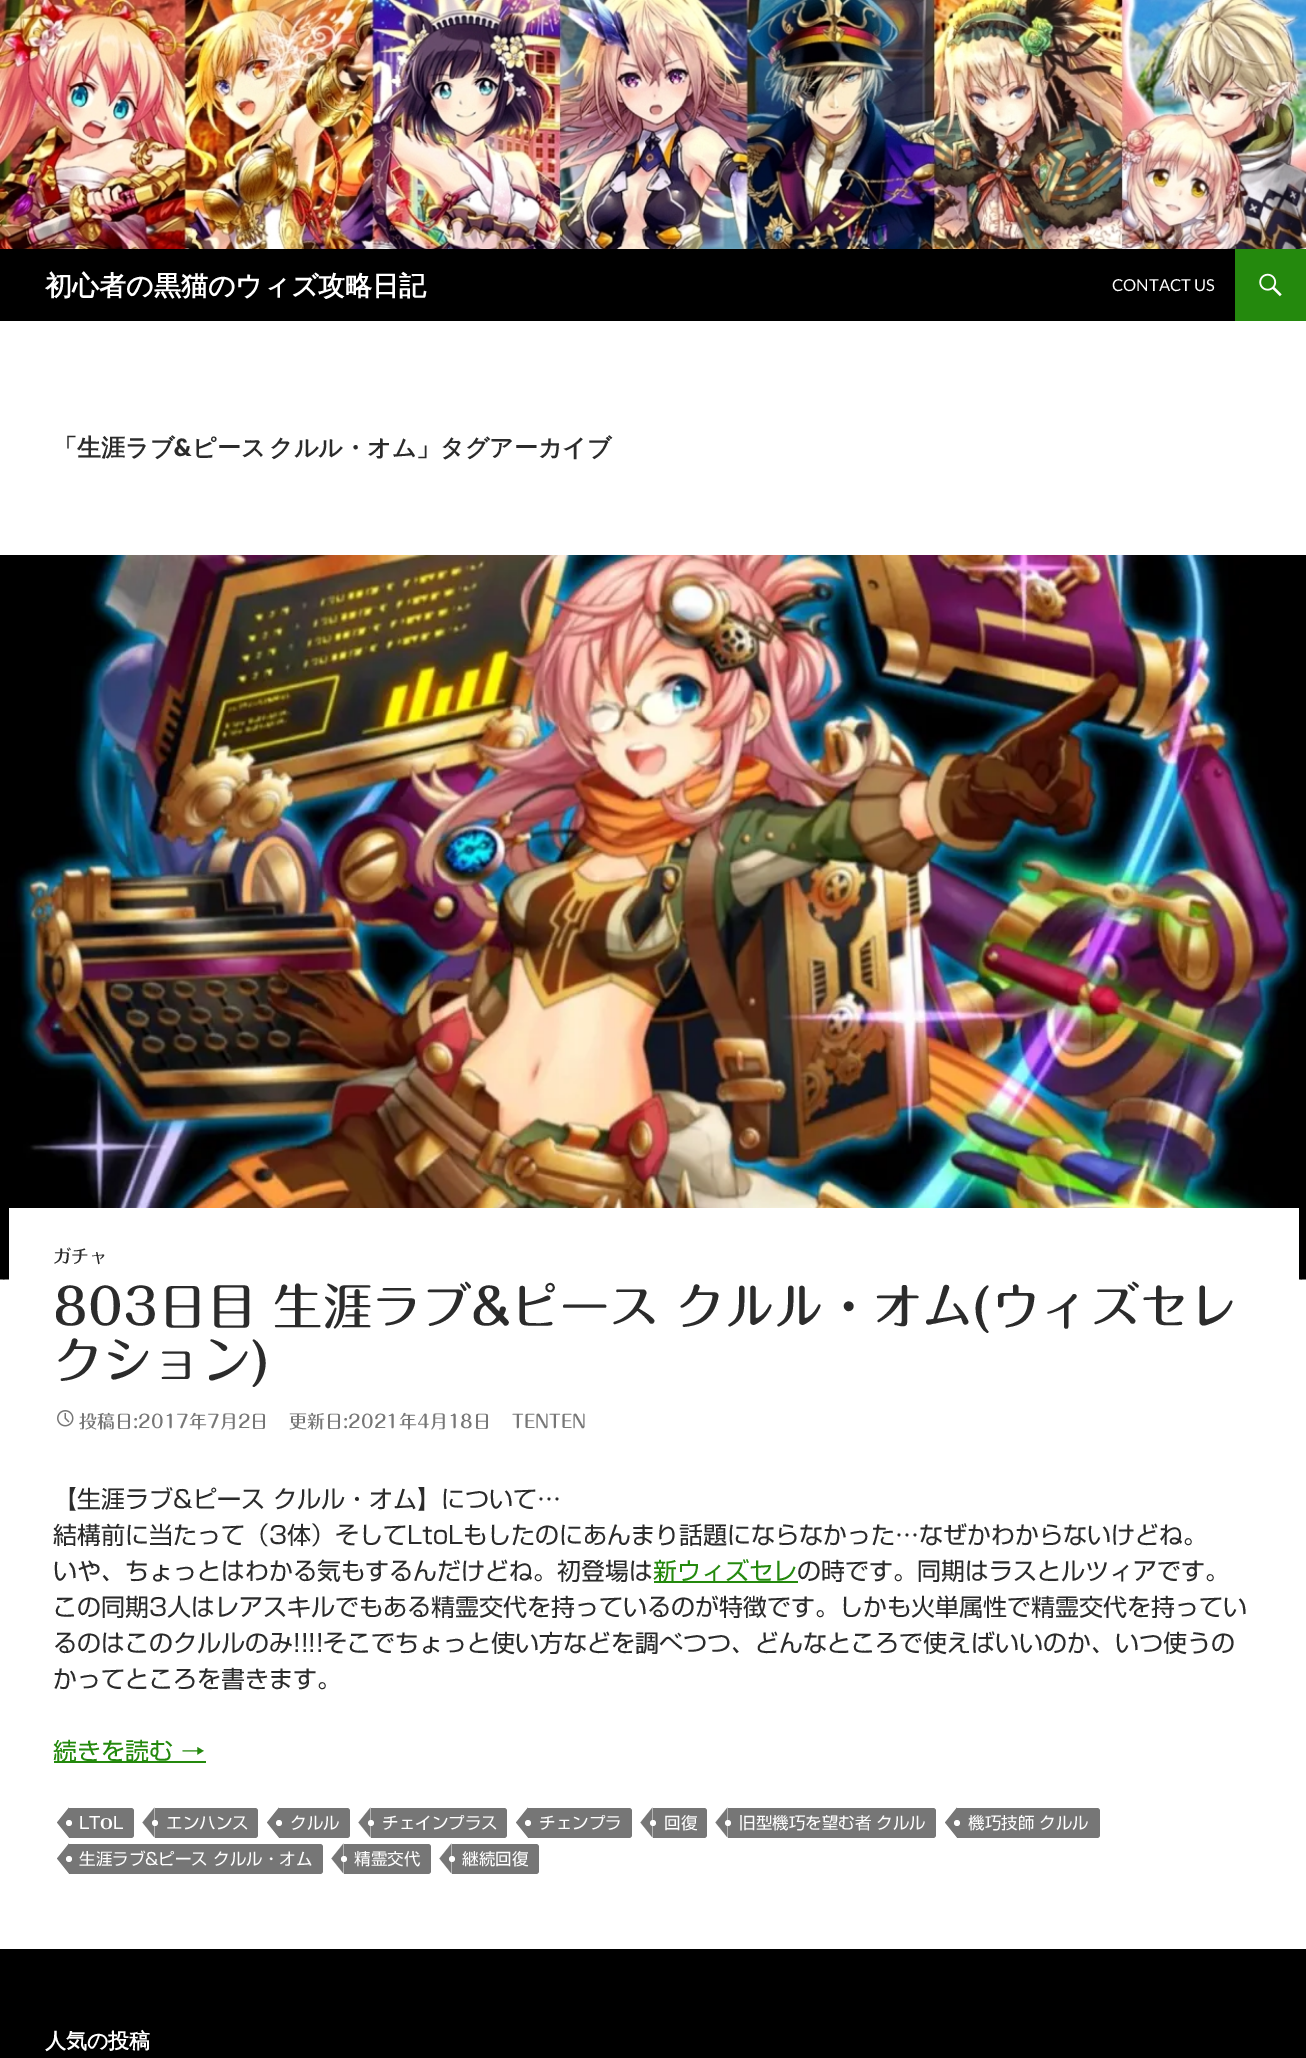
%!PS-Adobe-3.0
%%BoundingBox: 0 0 1306 2058
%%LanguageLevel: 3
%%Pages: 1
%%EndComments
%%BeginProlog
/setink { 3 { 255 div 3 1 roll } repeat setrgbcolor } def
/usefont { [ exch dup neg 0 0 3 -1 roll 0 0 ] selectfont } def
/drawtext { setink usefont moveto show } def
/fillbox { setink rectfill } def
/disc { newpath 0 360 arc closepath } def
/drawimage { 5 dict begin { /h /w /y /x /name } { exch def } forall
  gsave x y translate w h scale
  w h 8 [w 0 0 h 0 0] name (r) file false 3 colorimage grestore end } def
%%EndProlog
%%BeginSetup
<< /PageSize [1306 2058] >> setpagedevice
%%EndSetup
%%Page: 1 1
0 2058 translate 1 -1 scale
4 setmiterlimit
0 0 1306 2058 255 255 255 fillbox
(assets/img1.rgb) 0 0 1306 249 drawimage
0 249 1235 72 0 0 0 fillbox
(初心者の黒猫のウィズ攻略日記) 45 295 /WenQuanYiZenHei-Bold 27 255 255 255 drawtext
(CONTACT US) 1112 291 /Lato-Regular 16.5 255 255 255 drawtext
1235 249 71 72 36 137 13 fillbox
(assets/img2.rgb) 1259 273 23 24 drawimage
(「生涯ラブ) 53 456 /WenQuanYiZenHei-Bold 24 43 43 43 drawtext
(&) 174 456 /Lato-Black 24 43 43 43 drawtext
/WenQuanYiZenHei-Bold 24 usefont
192 456 moveto -3 0 32 (ピース クルル・オム」タグアーカイブ) widthshow
2 1279 1301 1 178 178 178 fillbox
(assets/img3.rgb) 0 1279 1306 1 drawimage
(assets/img4.rgb) 0 555 1306 725 drawimage
9 1208 1290 72 255 255 255 fillbox
(ガチャ) 53 1263 /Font-Medium 18 43 43 43 drawtext
(803日目 生涯ラブ&ピース クルル・オム\(ウィズセレ) 53 1325 /Font-Medium 49.5 43 43 43 drawtext
(クション\)) 53 1379 /Font-Medium 49.5 43 43 43 drawtext
(assets/img5.rgb) 57 1410 17 17 drawimage
(投稿日:2017年7月2日) 79 1428 /Font-Medium 18 118 118 118 drawtext
(更新日:2021年4月18日) 289 1428 /Font-Medium 18 118 118 118 drawtext
(TENTEN) 512 1428 /Font-Medium 18 118 118 118 drawtext
(【生涯ラブ&ピース クルル・オム】について…) 53 1508 /Font-Regular 24 43 43 43 drawtext
(結構前に当たって（3体）そしてLtoLもしたのにあんまり話題にならなかった…なぜかわからないけどね。) 53 1544 /Font-Regular 24 43 43 43 drawtext
(いや、ちょっとはわかる気もするんだけどね。初登場は) 53 1580 /Font-Regular 24 43 43 43 drawtext
654 1581 144 2 36 137 13 fillbox
(新ウィズセレ) 653 1580 /Font-Regular 24 36 137 13 drawtext
(の時です。同期はラスとルツィアです。) 797 1580 /Font-Regular 24 43 43 43 drawtext
(この同期3人はレアスキルでもある精霊交代を持っているのが特徴です。しかも火単属性で精霊交代を持ってい) 53 1616 /Font-Regular 24 43 43 43 drawtext
(るのはこのクルルのみ!!!!そこでちょっと使い方などを調べつつ、どんなところで使えばいいのか、いつ使うの) 53 1652 /Font-Regular 24 43 43 43 drawtext
(かってところを書きます。) 53 1688 /Font-Regular 24 43 43 43 drawtext
54 1761 152 2 36 137 13 fillbox
(続きを読む →) 53 1760 /Font-Regular 24 36 137 13 drawtext
118 118 118 setink
69 1808 moveto 131 1808 lineto 132.5 1808 134 1809.5 134 1811 curveto 134 1835 lineto 134 1836.5 132.5 1838 131 1838 curveto 69 1838 lineto closepath fill
69 1807.5 moveto 69 1837.5 lineto 57 1822.5 lineto closepath fill
(LT) 79 1829 /Font-Regular 16.5 255 255 255 drawtext
(O) 100 1829 /LiberationSerif-Bold 16.5 255 255 255 drawtext
(L) 113 1829 /Font-Regular 16.5 255 255 255 drawtext
69 1823 3 disc fill
118 118 118 setink
155 1808 moveto 255 1808 lineto 256.5 1808 258 1809.5 258 1811 curveto 258 1835 lineto 258 1836.5 256.5 1838 255 1838 curveto 155 1838 lineto closepath fill
154.5 1807.5 moveto 154.5 1837.5 lineto 142.5 1822.5 lineto closepath fill
(エンハンス) 166 1829 /Font-Regular 16.5 255 255 255 drawtext
155 1823 3 disc fill
118 118 118 setink
279 1808 moveto 347 1808 lineto 348.5 1808 350 1809.5 350 1811 curveto 350 1835 lineto 350 1836.5 348.5 1838 347 1838 curveto 279 1838 lineto closepath fill
279 1807.5 moveto 279 1837.5 lineto 267 1822.5 lineto closepath fill
(クルル) 290 1829 /Font-Regular 16.5 255 255 255 drawtext
279 1823 3 disc fill
118 118 118 setink
371 1808 moveto 504 1808 lineto 505.5 1808 507 1809.5 507 1811 curveto 507 1835 lineto 507 1836.5 505.5 1838 504 1838 curveto 371 1838 lineto closepath fill
370.5 1807.5 moveto 370.5 1837.5 lineto 358.5 1822.5 lineto closepath fill
(チェインプラス) 382 1829 /Font-Regular 16.5 255 255 255 drawtext
371 1823 3 disc fill
118 118 118 setink
528 1808 moveto 629 1808 lineto 630.5 1808 632 1809.5 632 1811 curveto 632 1835 lineto 632 1836.5 630.5 1838 629 1838 curveto 528 1838 lineto closepath fill
528 1807.5 moveto 528 1837.5 lineto 516 1822.5 lineto closepath fill
(チェンプラ) 539 1829 /Font-Regular 16.5 255 255 255 drawtext
528 1823 3 disc fill
118 118 118 setink
653 1808 moveto 704 1808 lineto 705.5 1808 707 1809.5 707 1811 curveto 707 1835 lineto 707 1836.5 705.5 1838 704 1838 curveto 653 1838 lineto closepath fill
652.5 1807.5 moveto 652.5 1837.5 lineto 640.5 1822.5 lineto closepath fill
(回復) 664 1829 /Font-Regular 16.5 255 255 255 drawtext
653 1823 3 disc fill
118 118 118 setink
728 1808 moveto 933 1808 lineto 934.5 1808 936 1809.5 936 1811 curveto 936 1835 lineto 936 1836.5 934.5 1838 933 1838 curveto 728 1838 lineto closepath fill
727.5 1807.5 moveto 727.5 1837.5 lineto 715.5 1822.5 lineto closepath fill
(旧型機巧を望む者 クルル) 739 1829 /Font-Regular 16.5 255 255 255 drawtext
728 1823 3 disc fill
118 118 118 setink
957 1808 moveto 1097 1808 lineto 1098.5 1808 1100 1809.5 1100 1811 curveto 1100 1835 lineto 1100 1836.5 1098.5 1838 1097 1838 curveto 957 1838 lineto closepath fill
957 1807.5 moveto 957 1837.5 lineto 945 1822.5 lineto closepath fill
(機巧技師 クルル) 968 1829 /Font-Regular 16.5 255 255 255 drawtext
957 1823 3 disc fill
118 118 118 setink
69 1844 moveto 320 1844 lineto 321.5 1844 323 1845.5 323 1847 curveto 323 1871 lineto 323 1872.5 321.5 1874 320 1874 curveto 69 1874 lineto closepath fill
69 1843.5 moveto 69 1873.5 lineto 57 1858.5 lineto closepath fill
(生涯ラブ&ピース クルル・オム) 79 1865 /Font-Regular 16.5 255 255 255 drawtext
69 1859 3 disc fill
118 118 118 setink
344 1844 moveto 428 1844 lineto 429.5 1844 431 1845.5 431 1847 curveto 431 1871 lineto 431 1872.5 429.5 1874 428 1874 curveto 344 1874 lineto closepath fill
343.5 1843.5 moveto 343.5 1873.5 lineto 331.5 1858.5 lineto closepath fill
(精霊交代) 354 1865 /Font-Regular 16.5 255 255 255 drawtext
344 1859 3 disc fill
118 118 118 setink
452 1844 moveto 536 1844 lineto 537.5 1844 539 1845.5 539 1847 curveto 539 1871 lineto 539 1872.5 537.5 1874 536 1874 curveto 452 1874 lineto closepath fill
451.5 1843.5 moveto 451.5 1873.5 lineto 439.5 1858.5 lineto closepath fill
(継続回復) 462 1865 /Font-Regular 16.5 255 255 255 drawtext
452 1859 3 disc fill
0 1949 1306 109 0 0 0 fillbox
(人気の投稿) 45 2048 /WenQuanYiZenHei-Bold 21 255 255 255 drawtext
showpage
%%EOF
